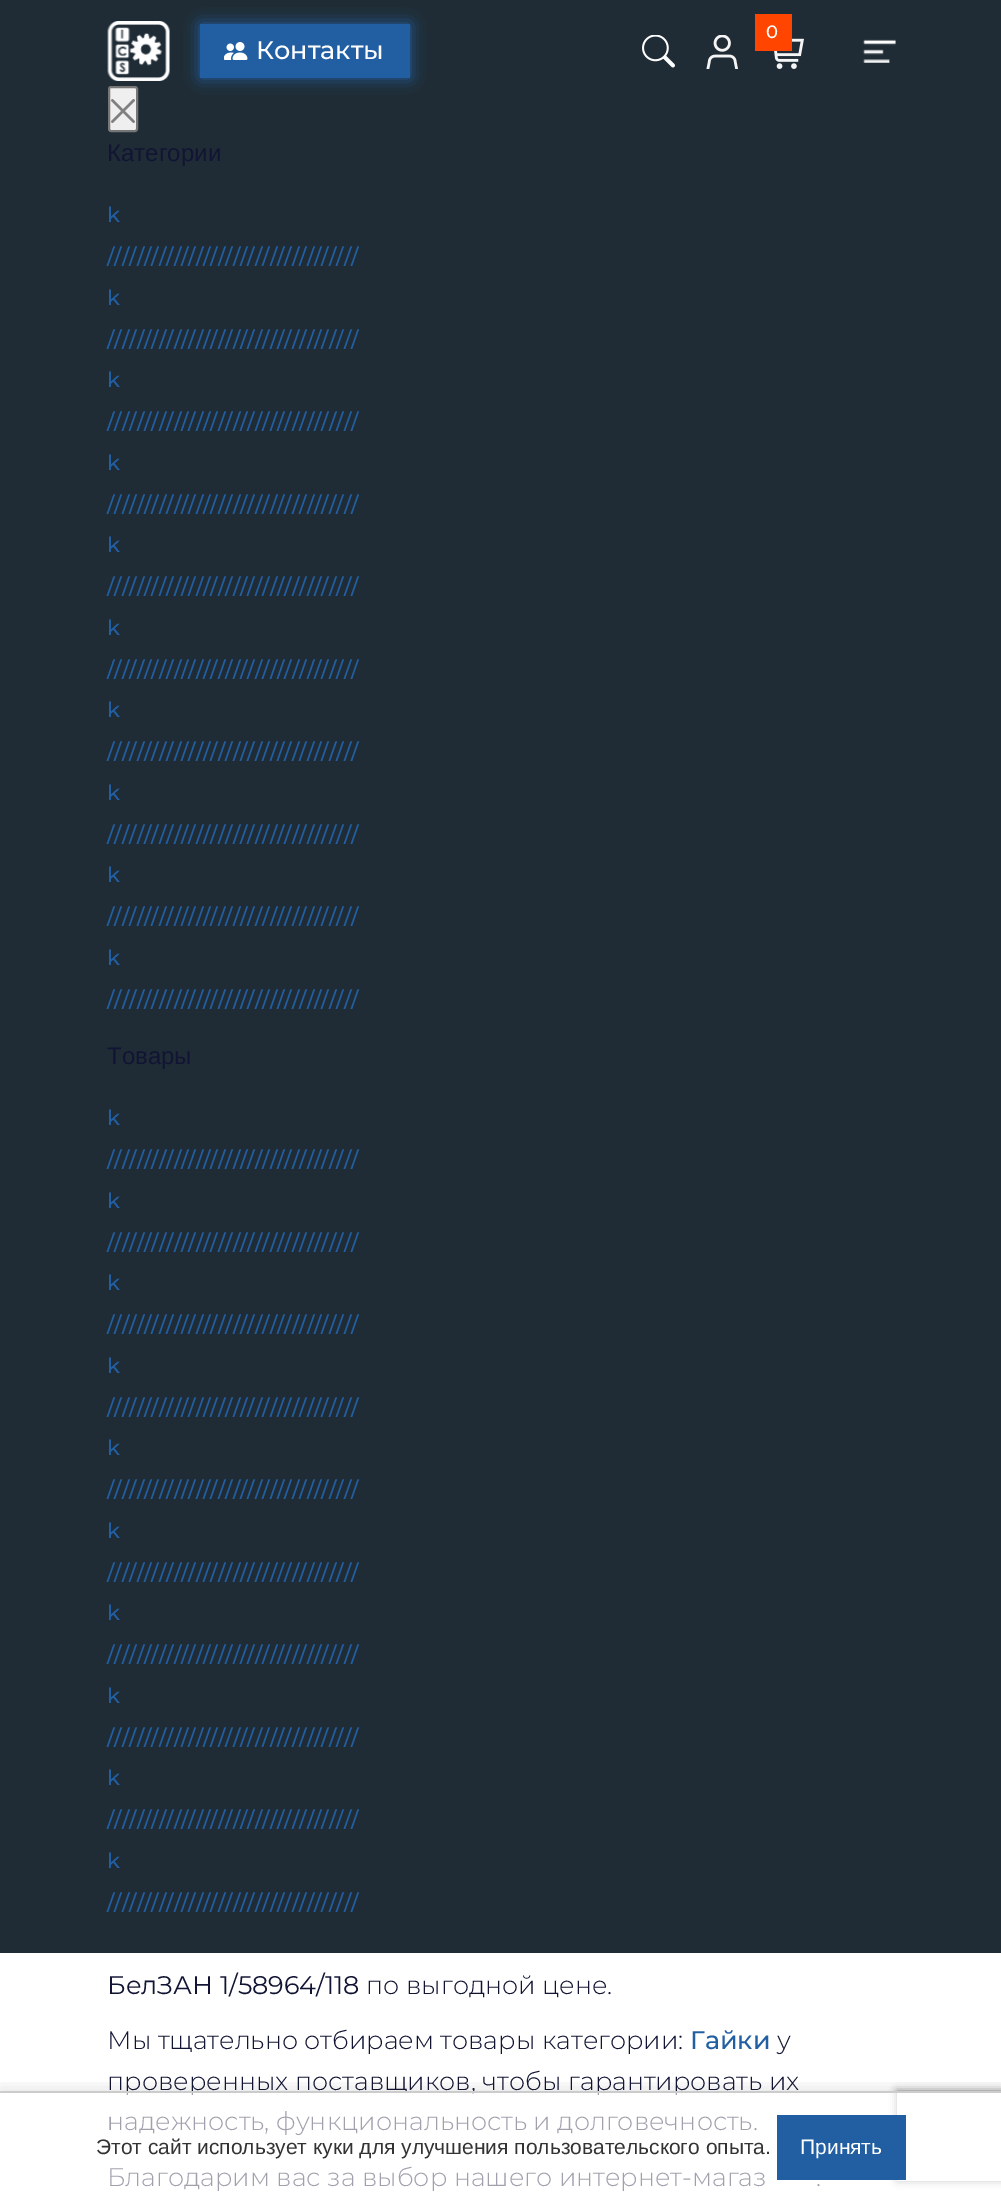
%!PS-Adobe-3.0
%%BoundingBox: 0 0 1001 2201
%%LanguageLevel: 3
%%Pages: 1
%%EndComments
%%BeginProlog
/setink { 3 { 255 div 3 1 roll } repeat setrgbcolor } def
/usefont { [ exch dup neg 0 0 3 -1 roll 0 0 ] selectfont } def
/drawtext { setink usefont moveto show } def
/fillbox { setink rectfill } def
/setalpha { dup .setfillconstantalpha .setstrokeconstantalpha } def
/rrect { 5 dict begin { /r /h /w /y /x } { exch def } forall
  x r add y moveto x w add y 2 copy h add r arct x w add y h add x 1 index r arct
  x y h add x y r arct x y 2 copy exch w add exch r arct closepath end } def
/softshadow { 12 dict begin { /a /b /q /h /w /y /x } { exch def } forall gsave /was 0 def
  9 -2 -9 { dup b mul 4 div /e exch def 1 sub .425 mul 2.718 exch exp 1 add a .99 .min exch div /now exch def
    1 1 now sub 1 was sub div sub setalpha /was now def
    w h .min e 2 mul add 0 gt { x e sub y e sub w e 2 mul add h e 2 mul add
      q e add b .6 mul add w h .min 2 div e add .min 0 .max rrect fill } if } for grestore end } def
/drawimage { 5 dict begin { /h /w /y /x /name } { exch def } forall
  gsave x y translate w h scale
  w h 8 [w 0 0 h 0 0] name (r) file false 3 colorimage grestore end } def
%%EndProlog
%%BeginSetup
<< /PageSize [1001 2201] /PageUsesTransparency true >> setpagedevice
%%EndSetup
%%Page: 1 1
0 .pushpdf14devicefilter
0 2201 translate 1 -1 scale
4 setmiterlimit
0 0 1001 2201 255 255 255 fillbox
0 0 1001 1953 31 44 54 fillbox
(assets/img1.rgb) 107 21 63 60 drawimage
(assets/img2.rgb) 774 38 30 31 drawimage
755 14 37 37 255 69 0 fillbox
(0) 766 38 /Montserrat-Medium 18 255 255 255 drawtext
(assets/img3.rgb) 642 35 33 33 drawimage
(assets/img4.rgb) 706 35 32 34 drawimage
34 95 162 setink
200 24 210 54 0 7.5 1 softshadow
200 24 210 54 34 95 162 fillbox
(assets/img5.rgb) 224 42 24 18 drawimage
(Контакты) 256 59 /Montserrat-Medium 25.5 255 255 255 drawtext
(assets/img6.rgb) 862 39 34 24 drawimage
239 239 239 setink
109 87 28 44 2 rrect gsave fill grestore
118 118 118 setink
2 setlinewidth
stroke
(assets/img7.rgb) 111 99 24 24 drawimage
(Категории) 107 161 /LiberationSans-Regular 24 17 20 51 drawtext
(k) 107 222 /Montserrat-Medium 21 34 95 162 drawtext
(//////////////////////////////////) 107 264 /Montserrat-Medium 21 34 95 162 drawtext
(k) 107 305 /Montserrat-Medium 21 34 95 162 drawtext
(//////////////////////////////////) 107 347 /Montserrat-Medium 21 34 95 162 drawtext
(k) 107 387 /Montserrat-Medium 21 34 95 162 drawtext
(//////////////////////////////////) 107 429 /Montserrat-Medium 21 34 95 162 drawtext
(k) 107 470 /Montserrat-Medium 21 34 95 162 drawtext
(//////////////////////////////////) 107 512 /Montserrat-Medium 21 34 95 162 drawtext
(k) 107 552 /Montserrat-Medium 21 34 95 162 drawtext
(//////////////////////////////////) 107 594 /Montserrat-Medium 21 34 95 162 drawtext
(k) 107 635 /Montserrat-Medium 21 34 95 162 drawtext
(//////////////////////////////////) 107 677 /Montserrat-Medium 21 34 95 162 drawtext
(k) 107 717 /Montserrat-Medium 21 34 95 162 drawtext
(//////////////////////////////////) 107 759 /Montserrat-Medium 21 34 95 162 drawtext
(k) 107 800 /Montserrat-Medium 21 34 95 162 drawtext
(//////////////////////////////////) 107 842 /Montserrat-Medium 21 34 95 162 drawtext
(k) 107 882 /Montserrat-Medium 21 34 95 162 drawtext
(//////////////////////////////////) 107 924 /Montserrat-Medium 21 34 95 162 drawtext
(k) 107 965 /Montserrat-Medium 21 34 95 162 drawtext
(//////////////////////////////////) 107 1007 /Montserrat-Medium 21 34 95 162 drawtext
(Товары) 107 1064 /LiberationSans-Regular 24 17 20 51 drawtext
(k) 107 1125 /Montserrat-Medium 21 34 95 162 drawtext
(//////////////////////////////////) 107 1167 /Montserrat-Medium 21 34 95 162 drawtext
(k) 107 1208 /Montserrat-Medium 21 34 95 162 drawtext
(//////////////////////////////////) 107 1250 /Montserrat-Medium 21 34 95 162 drawtext
(k) 107 1290 /Montserrat-Medium 21 34 95 162 drawtext
(//////////////////////////////////) 107 1332 /Montserrat-Medium 21 34 95 162 drawtext
(k) 107 1373 /Montserrat-Medium 21 34 95 162 drawtext
(//////////////////////////////////) 107 1415 /Montserrat-Medium 21 34 95 162 drawtext
(k) 107 1455 /Montserrat-Medium 21 34 95 162 drawtext
(//////////////////////////////////) 107 1497 /Montserrat-Medium 21 34 95 162 drawtext
(k) 107 1538 /Montserrat-Medium 21 34 95 162 drawtext
(//////////////////////////////////) 107 1580 /Montserrat-Medium 21 34 95 162 drawtext
(k) 107 1620 /Montserrat-Medium 21 34 95 162 drawtext
(//////////////////////////////////) 107 1662 /Montserrat-Medium 21 34 95 162 drawtext
(k) 107 1703 /Montserrat-Medium 21 34 95 162 drawtext
(//////////////////////////////////) 107 1745 /Montserrat-Medium 21 34 95 162 drawtext
(k) 107 1785 /Montserrat-Medium 21 34 95 162 drawtext
(//////////////////////////////////) 107 1827 /Montserrat-Medium 21 34 95 162 drawtext
(k) 107 1868 /Montserrat-Medium 21 34 95 162 drawtext
(//////////////////////////////////) 107 1910 /Montserrat-Medium 21 34 95 162 drawtext
(БелЗАН 1/58964/118) 107 1994 /Montserrat-Regular 25.5 17 20 51 drawtext
(по выгодной цене.) 366 1994 /Montserrat-Light 25.5 17 20 51 drawtext
(Мы тщательно отбираем товары категории:) 107 2049 /Montserrat-Light 25.5 17 20 51 drawtext
(Гайки) 690 2049 /Montserrat-Medium 25.5 34 95 162 drawtext
(у) 777 2049 /Montserrat-Light 25.5 17 20 51 drawtext
(проверенных поставщиков, чтобы гарантировать их) 107 2090 /Montserrat-Light 25.5 17 20 51 drawtext
(надежность, функциональность и долговечность.) 107 2130 /Montserrat-Light 25.5 17 20 51 drawtext
(Благодарим вас за выбор нашего интернет-магаз) 107 2186 /Montserrat-Light 25.5 17 20 51 drawtext
(.) 816 2186 /Montserrat-Light 25.5 17 20 51 drawtext
gsave
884 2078 moveto 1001 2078 lineto 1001 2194 lineto 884 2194 lineto closepath 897 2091 moveto 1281 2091 lineto 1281 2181 lineto 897 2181 lineto closepath eoclip newpath
128 128 128 setink
897 2091 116 90 0 4 1 softshadow
grestore
gsave
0 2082 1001 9 rectclip
0 0 0 setink
0 2088 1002 111 0 7.5 0.1 softshadow
grestore
0.6 setalpha
110 2093 891 98 255 255 255 fillbox
1 setalpha
0 2091 1001 2 204 204 204 fillbox
(Этот сайт использует куки для улучшения пользовательского опыта.) 96 2154 /LiberationSans-Regular 21 51 51 51 drawtext
777 2115 129 65 34 95 162 fillbox
(Принять) 800 2154 /LiberationSans-Regular 21 255 255 255 drawtext
.poppdf14devicefilter showpage
%%EOF
